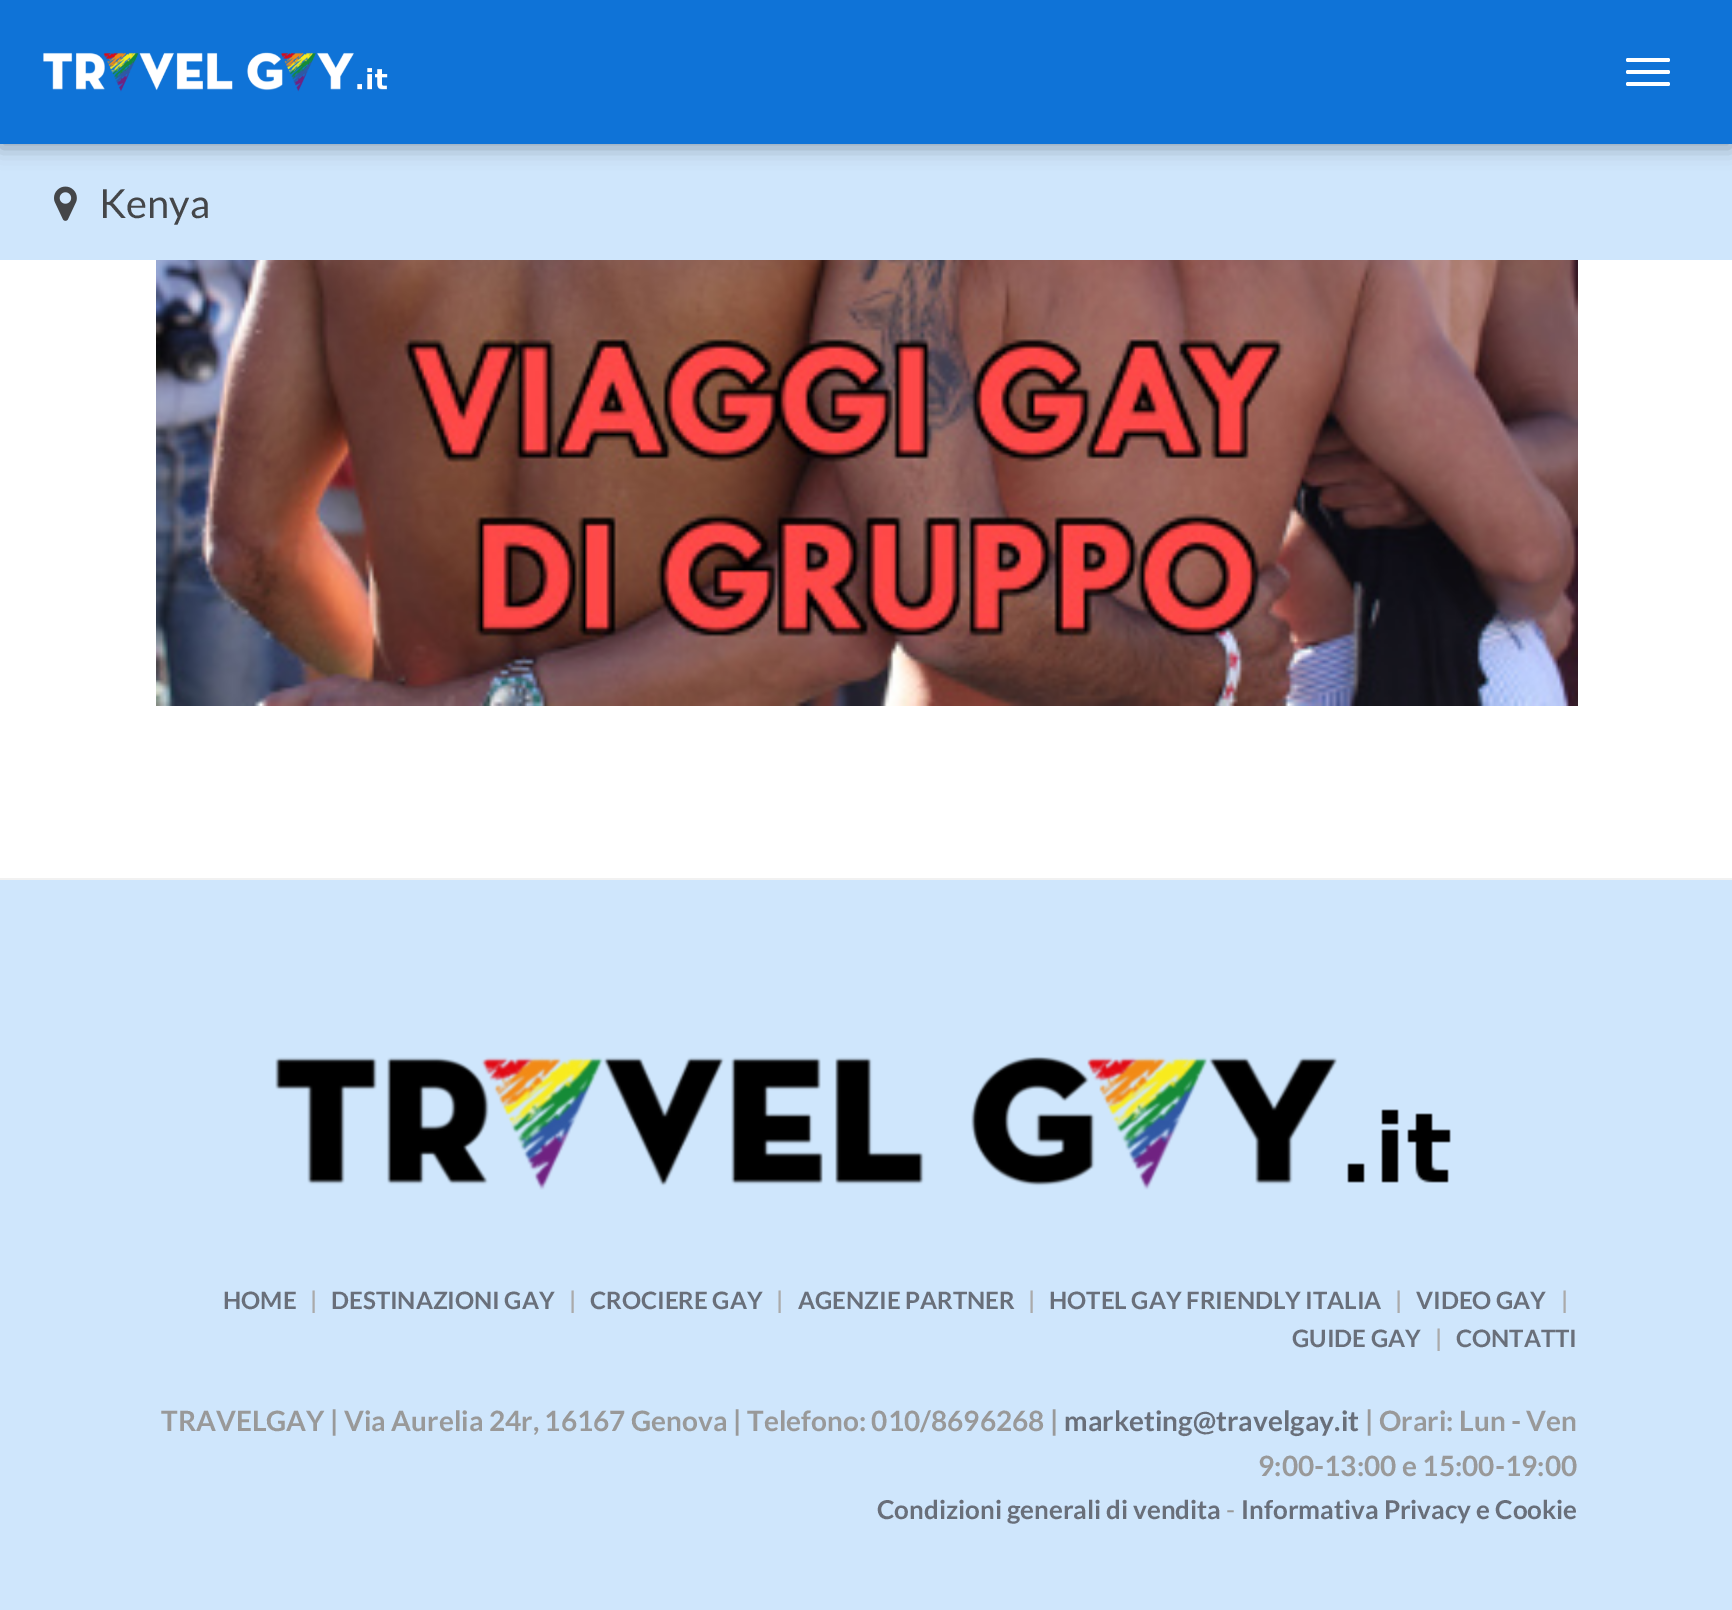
%!PS-Adobe-3.0
%%BoundingBox: 0 0 1732 1610
%%LanguageLevel: 3
%%Pages: 1
%%EndComments
%%BeginProlog
/setink { 3 { 255 div 3 1 roll } repeat setrgbcolor } def
/usefont { [ exch dup neg 0 0 3 -1 roll 0 0 ] selectfont } def
/drawtext { setink usefont moveto show } def
/fillbox { setink rectfill } def
/setalpha { dup .setfillconstantalpha .setstrokeconstantalpha } def
/rrect { 5 dict begin { /r /h /w /y /x } { exch def } forall
  x r add y moveto x w add y 2 copy h add r arct x w add y h add x 1 index r arct
  x y h add x y r arct x y 2 copy exch w add exch r arct closepath end } def
/softshadow { 12 dict begin { /a /b /q /h /w /y /x } { exch def } forall gsave /was 0 def
  9 -2 -9 { dup b mul 4 div /e exch def 1 sub .425 mul 2.718 exch exp 1 add a .99 .min exch div /now exch def
    1 1 now sub 1 was sub div sub setalpha /was now def
    w h .min e 2 mul add 0 gt { x e sub y e sub w e 2 mul add h e 2 mul add
      q e add b .6 mul add w h .min 2 div e add .min 0 .max rrect fill } if } for grestore end } def
/drawimage { 5 dict begin { /h /w /y /x /name } { exch def } forall
  gsave x y translate w h scale
  w h 8 [w 0 0 h 0 0] name (r) file false 3 colorimage grestore end } def
%%EndProlog
%%BeginSetup
<< /PageSize [1732 1610] /PageUsesTransparency true >> setpagedevice
%%EndSetup
%%Page: 1 1
0 .pushpdf14devicefilter
0 1610 translate 1 -1 scale
4 setmiterlimit
0 0 1732 1610 255 255 255 fillbox
0 144 1732 116 207 230 252 fillbox
0 0 0 setink
0 4 1732 144 0 10 0.3 softshadow
0 0 1732 144 15 115 215 fillbox
(assets/img1.rgb) 43 52 345 40 drawimage
255 255 255 setink
1626 58 44 4 2 rrect fill
1626 70 44 4 2 rrect fill
1626 82 44 4 2 rrect fill
(assets/img2.rgb) 54 186 23 35 drawimage
(Kenya) 99 218 /Lato-Regular 40 68 70 73 drawtext
(assets/img3.rgb) 156 260 1422 446 drawimage
0 878 1732 2 241 241 241 fillbox
0 880 1732 730 207 230 252 fillbox
(assets/img4.rgb) 275 1056 1176 134 drawimage
(HOME) 223 1309 /Lato-Bold 24 105 111 122 drawtext
(|) 310 1309 /Lato-Bold 24 170 170 170 drawtext
(DESTINAZIONI GAY) 331 1309 /Lato-Bold 24 105 111 122 drawtext
(|) 569 1309 /Lato-Bold 24 170 170 170 drawtext
(CROCIERE GAY) 590 1309 /Lato-Bold 24 105 111 122 drawtext
(|) 776 1309 /Lato-Bold 24 170 170 170 drawtext
(AGENZIE PARTNER) 798 1309 /Lato-Bold 24 105 111 122 drawtext
(|) 1028 1309 /Lato-Bold 24 170 170 170 drawtext
(HOTEL GAY FRIENDLY ITALIA) 1049 1309 /Lato-Bold 24 105 111 122 drawtext
(|) 1395 1309 /Lato-Bold 24 170 170 170 drawtext
(VIDEO GAY) 1416 1309 /Lato-Bold 24 105 111 122 drawtext
(|) 1561 1309 /Lato-Bold 24 170 170 170 drawtext
(GUIDE GAY) 1292 1347 /Lato-Bold 24 105 111 122 drawtext
(|) 1435 1347 /Lato-Bold 24 170 170 170 drawtext
(CONTATTI) 1456 1347 /Lato-Bold 24 105 111 122 drawtext
(TRAVELGAY | Via Aurelia 24r, 16167 Genova | Telefono: 010/8696268 |) 161 1431 /Lato-Bold 28 153 153 153 drawtext
(marketing@travelgay.it) 1064 1431 /Lato-Bold 28 105 111 122 drawtext
(| Orari: Lun - Ven) 1365 1431 /Lato-Bold 28 153 153 153 drawtext
(9:00-13:00 e 15:00-19:00) 1258 1476 /Lato-Bold 28 153 153 153 drawtext
(Condizioni generali di vendita) 877 1519 /Lato-Bold 26 105 111 122 drawtext
(-) 1226 1519 /Lato-Regular 26 153 153 153 drawtext
(Informativa Privacy e Cookie) 1241 1519 /Lato-Bold 26 105 111 122 drawtext
.poppdf14devicefilter showpage
%%EOF
